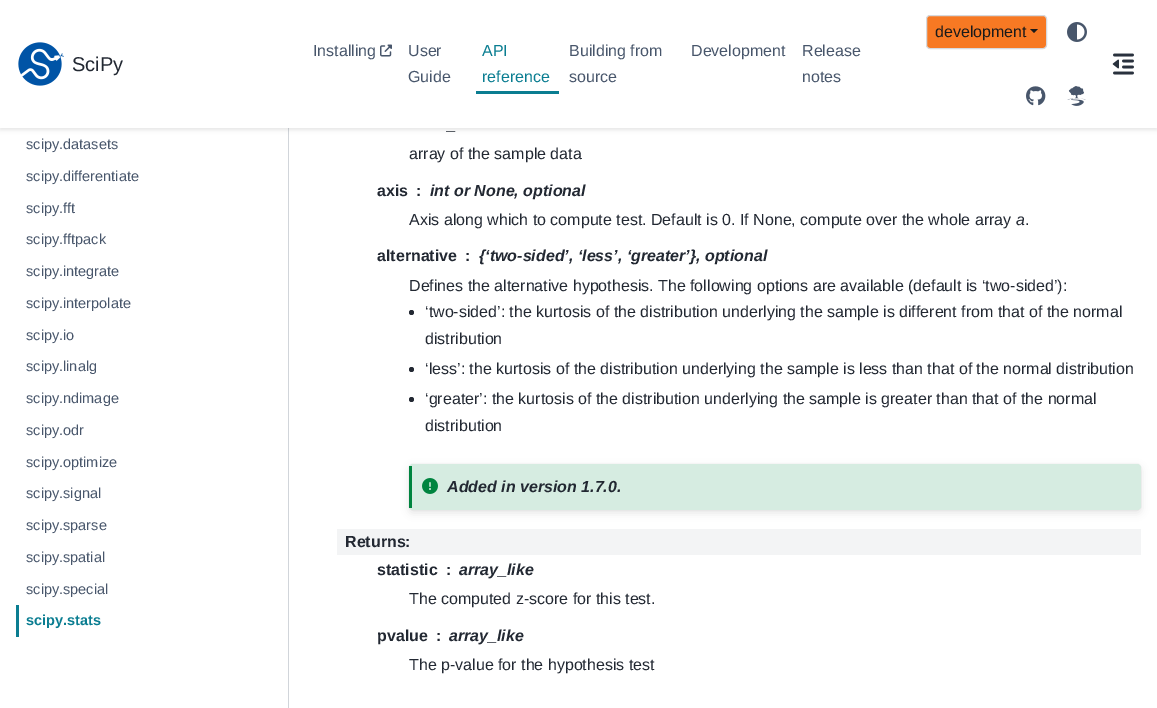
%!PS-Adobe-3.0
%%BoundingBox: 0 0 1157 708
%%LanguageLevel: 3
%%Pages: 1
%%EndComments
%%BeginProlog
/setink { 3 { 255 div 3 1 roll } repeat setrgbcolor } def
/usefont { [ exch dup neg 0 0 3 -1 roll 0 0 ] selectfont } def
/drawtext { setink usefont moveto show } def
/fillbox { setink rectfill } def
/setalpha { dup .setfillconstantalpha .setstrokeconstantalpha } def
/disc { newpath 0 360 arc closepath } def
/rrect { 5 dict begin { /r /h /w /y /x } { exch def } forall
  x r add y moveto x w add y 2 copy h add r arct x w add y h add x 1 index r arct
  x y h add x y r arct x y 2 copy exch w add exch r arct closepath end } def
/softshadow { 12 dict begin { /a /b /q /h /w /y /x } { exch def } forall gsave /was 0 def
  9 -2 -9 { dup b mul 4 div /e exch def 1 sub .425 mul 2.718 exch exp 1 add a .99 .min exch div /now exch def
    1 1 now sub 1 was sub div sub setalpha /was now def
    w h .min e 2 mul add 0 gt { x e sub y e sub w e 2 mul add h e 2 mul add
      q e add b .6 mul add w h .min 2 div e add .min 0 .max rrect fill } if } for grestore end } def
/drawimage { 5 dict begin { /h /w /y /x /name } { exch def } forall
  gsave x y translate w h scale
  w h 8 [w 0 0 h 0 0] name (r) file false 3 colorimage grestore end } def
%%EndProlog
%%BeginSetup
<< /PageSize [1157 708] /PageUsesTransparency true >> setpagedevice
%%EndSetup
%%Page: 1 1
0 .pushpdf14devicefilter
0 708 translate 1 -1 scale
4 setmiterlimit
0 0 1157 708 255 255 255 fillbox
288 128 1 580 209 213 218 fillbox
0 0 0 setink
0 2 1157 128 0 2 0.1 softshadow
0 0 1157 128 255 255 255 fillbox
(assets/img1.rgb) 18 42 46 44 drawimage
(SciPy) 72 71 /LiberationSans-Regular 20 34 40 50 drawtext
247 121 35 setink
926.5 15.5 120 33 3.5 rrect gsave fill grestore
214 217 222 setink
stroke
(development) 935 37 /LiberationSans-Regular 16 26 26 26 drawtext
1030 29 moveto 1038 29 lineto 1034 33 lineto closepath fill
(assets/img2.rgb) 1067 22 20 20 drawimage
(assets/img3.rgb) 1026 86 20 20 drawimage
(assets/img4.rgb) 1067 86 19 20 drawimage
(Installing) 313 56 /LiberationSans-Regular 16 72 86 107 drawtext
(assets/img5.rgb) 380 44 12 13 drawimage
(User) 408 56 /LiberationSans-Regular 16 72 86 107 drawtext
(Guide) 408 82 /LiberationSans-Regular 16 72 86 107 drawtext
(API) 482 56 /LiberationSans-Regular 16 10 125 145 drawtext
(reference) 482 82 /LiberationSans-Regular 16 10 125 145 drawtext
476 91 83 3 10 125 145 fillbox
(Building from) 569 56 /LiberationSans-Regular 16 72 86 107 drawtext
(source) 569 82 /LiberationSans-Regular 16 72 86 107 drawtext
(Development) 691 56 /LiberationSans-Regular 16 72 86 107 drawtext
(Release) 802 56 /LiberationSans-Regular 16 72 86 107 drawtext
(notes) 802 82 /LiberationSans-Regular 16 72 86 107 drawtext
(assets/img6.rgb) 1112 53 22 22 drawimage
(scipy.datasets) 26 149 /LiberationSans-Regular 14.5 72 86 107 drawtext
(scipy.differentiate) 26 181 /LiberationSans-Regular 14.5 72 86 107 drawtext
(scipy.fft) 26 213 /LiberationSans-Regular 14.5 72 86 107 drawtext
(scipy.fftpack) 26 244 /LiberationSans-Regular 14.5 72 86 107 drawtext
(scipy.integrate) 26 276 /LiberationSans-Regular 14.5 72 86 107 drawtext
(scipy.interpolate) 26 308 /LiberationSans-Regular 14.5 72 86 107 drawtext
(scipy.io) 26 340 /LiberationSans-Regular 14.5 72 86 107 drawtext
(scipy.linalg) 26 371 /LiberationSans-Regular 14.5 72 86 107 drawtext
(scipy.ndimage) 26 403 /LiberationSans-Regular 14.5 72 86 107 drawtext
(scipy.odr) 26 435 /LiberationSans-Regular 14.5 72 86 107 drawtext
(scipy.optimize) 26 467 /LiberationSans-Regular 14.5 72 86 107 drawtext
(scipy.signal) 26 498 /LiberationSans-Regular 14.5 72 86 107 drawtext
(scipy.sparse) 26 530 /LiberationSans-Regular 14.5 72 86 107 drawtext
(scipy.spatial) 26 562 /LiberationSans-Regular 14.5 72 86 107 drawtext
(scipy.special) 26 594 /LiberationSans-Regular 14.5 72 86 107 drawtext
16 605 3 32 10 125 145 fillbox
(scipy.stats) 26 625 /LiberationSans-Bold 14.5 10 125 145 drawtext
(_) 447 130 /LiberationSans-BoldItalic 16 34 40 50 drawtext
(array of the sample data) 409 159 /LiberationSans-Regular 16 34 40 50 drawtext
(axis) 377 196 /LiberationSans-Bold 16 34 40 50 drawtext
(:) 416 196 /LiberationSans-Bold 16 34 40 50 drawtext
(int or None, optional) 430 196 /LiberationSans-BoldItalic 16 34 40 50 drawtext
(Axis along which to compute test. Default is 0. If None, compute over the whole array) 409 225 /LiberationSans-Regular 16 34 40 50 drawtext
(a) 1016 225 /LiberationSans-Italic 16 34 40 50 drawtext
(.) 1025 225 /LiberationSans-Regular 16 34 40 50 drawtext
(alternative) 377 261 /LiberationSans-Bold 16 34 40 50 drawtext
(:) 465 261 /LiberationSans-Bold 16 34 40 50 drawtext
({‘two-sided’, ‘less’, ‘greater’}, optional) 479 261 /LiberationSans-BoldItalic 16 34 40 50 drawtext
(Defines the alternative hypothesis. The following options are available \(default is ‘two-sided’\):) 409 291 /LiberationSans-Regular 16 34 40 50 drawtext
411.5 312.5 2.5 disc fill
(‘two-sided’: the kurtosis of the distribution underlying the sample is different from that of the normal) 425 317 /LiberationSans-Regular 16 34 40 50 drawtext
(distribution) 425 344 /LiberationSans-Regular 16 34 40 50 drawtext
411.5 369.5 2.5 disc fill
(‘less’: the kurtosis of the distribution underlying the sample is less than that of the normal distribution) 425 374 /LiberationSans-Regular 16 34 40 50 drawtext
411.5 399.5 2.5 disc fill
(‘greater’: the kurtosis of the distribution underlying the sample is greater than that of the normal) 425 404 /LiberationSans-Regular 16 34 40 50 drawtext
(distribution) 425 431 /LiberationSans-Regular 16 34 40 50 drawtext
0 0 0 setink
409 464 732 46 4 0.5 0.1 softshadow
409 467 732 46 4 4 0.1 softshadow
214 236 225 setink
409 464 732 46 4 rrect fill
409 466 3 42 0 132 63 fillbox
(assets/img7.rgb) 422 478 16 16 drawimage
(Added in version 1.7.0.) 447 492 /LiberationSans-BoldItalic 16 34 40 50 drawtext
337 529 804 26 243 244 245 fillbox
(Returns:) 345 547 /LiberationSans-Bold 16 34 40 50 drawtext
(statistic) 377 575 /LiberationSans-Bold 16 34 40 50 drawtext
(:) 446 575 /LiberationSans-Bold 16 34 40 50 drawtext
(array_like) 459 575 /LiberationSans-BoldItalic 16 34 40 50 drawtext
(The computed z-score for this test.) 409 604 /LiberationSans-Regular 16 34 40 50 drawtext
(pvalue) 377 641 /LiberationSans-Bold 16 34 40 50 drawtext
(:) 436 641 /LiberationSans-Bold 16 34 40 50 drawtext
(array_like) 449 641 /LiberationSans-BoldItalic 16 34 40 50 drawtext
(The p-value for the hypothesis test) 409 670 /LiberationSans-Regular 16 34 40 50 drawtext
.poppdf14devicefilter showpage
%%EOF
